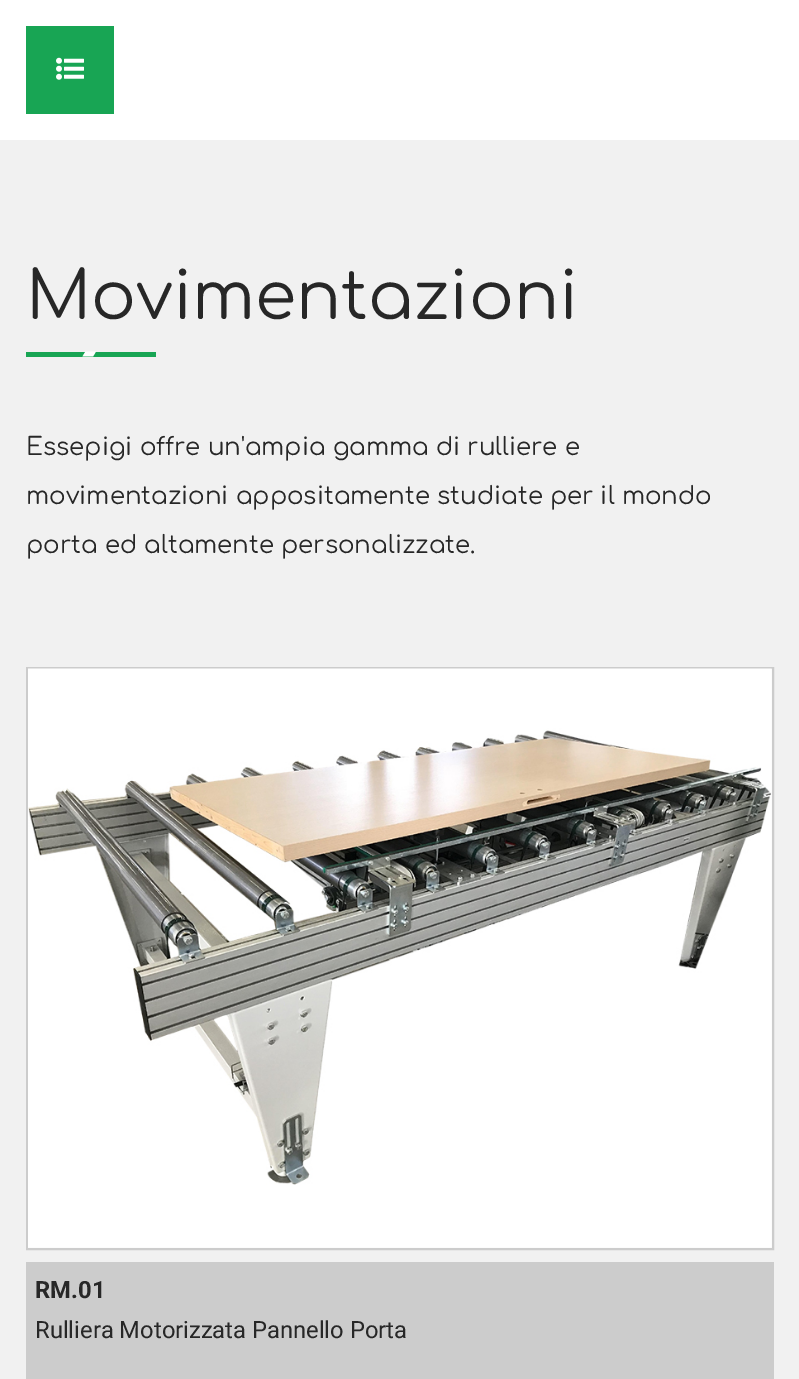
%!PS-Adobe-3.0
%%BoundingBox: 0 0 799 1379
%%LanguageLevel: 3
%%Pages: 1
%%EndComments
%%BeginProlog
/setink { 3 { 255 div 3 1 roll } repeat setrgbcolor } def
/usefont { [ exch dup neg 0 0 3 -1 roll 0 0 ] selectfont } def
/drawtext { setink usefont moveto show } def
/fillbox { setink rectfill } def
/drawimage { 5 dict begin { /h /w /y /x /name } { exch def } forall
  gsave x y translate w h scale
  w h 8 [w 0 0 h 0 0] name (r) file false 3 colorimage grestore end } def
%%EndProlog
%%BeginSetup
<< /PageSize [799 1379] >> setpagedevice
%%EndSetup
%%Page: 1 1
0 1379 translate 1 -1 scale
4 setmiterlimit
0 0 799 1379 255 255 255 fillbox
26 26 88 88 24 165 84 fillbox
(assets/img1.rgb) 56 57 28 23 drawimage
0 140 799 1239 241 241 241 fillbox
(Movimentazioni) 26 319 /Comfortaa-Regular 66.5 39 39 39 drawtext
26 352 130 5 24 165 84 fillbox
255 255 255 setink
85.5 351.5 moveto 96 351.5 lineto 93 356.5 lineto 82.5 356.5 lineto closepath fill
(Essepigi offre un'ampia gamma di rulliere e) 26 455 /Comfortaa-Regular 24.5 39 39 39 drawtext
(movimentazioni appositamente studiate per il mondo) 26 504 /Comfortaa-Regular 24.5 39 39 39 drawtext
(porta ed altamente personalizzate.) 26 553 /Comfortaa-Regular 24.5 39 39 39 drawtext
204 204 204 setink
2 setlinewidth
27 668 746 581 rectstroke
(assets/img2.rgb) 28 668 744 580 drawimage
26 1262 748 117 204 204 204 fillbox
(RM.01) 35 1298 /Roboto-Bold 23.75 39 39 39 drawtext
(Rulliera Motorizzata Pannello Porta) 35 1338 /Roboto-Regular 23.75 39 39 39 drawtext
showpage
%%EOF
